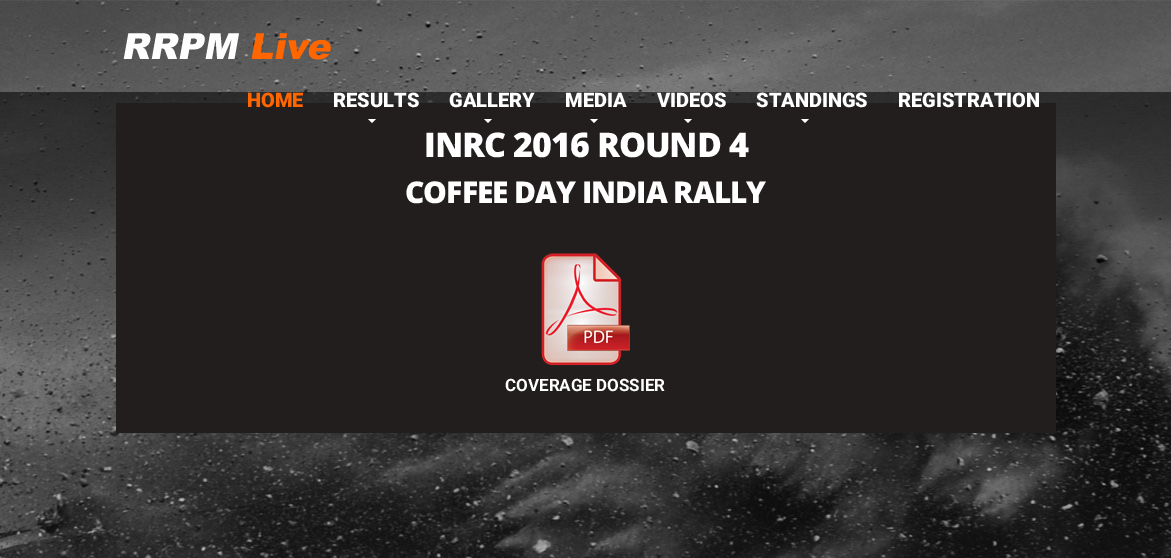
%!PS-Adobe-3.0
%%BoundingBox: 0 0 1171 558
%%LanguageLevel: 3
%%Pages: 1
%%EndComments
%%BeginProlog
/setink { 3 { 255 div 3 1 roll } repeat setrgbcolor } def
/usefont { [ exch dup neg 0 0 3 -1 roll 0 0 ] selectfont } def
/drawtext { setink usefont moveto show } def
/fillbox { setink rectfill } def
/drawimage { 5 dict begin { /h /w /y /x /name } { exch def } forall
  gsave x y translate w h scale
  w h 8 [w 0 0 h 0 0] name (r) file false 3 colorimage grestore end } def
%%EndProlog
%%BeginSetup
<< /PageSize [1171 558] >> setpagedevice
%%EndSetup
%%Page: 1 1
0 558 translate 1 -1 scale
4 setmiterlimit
0 0 1171 558 255 255 255 fillbox
(assets/img2.rgb) 0 0 1171 558 drawimage
(assets/img1.rgb) 0 92 1171 326 drawimage
(assets/img3.rgb) 123 33 208 27 drawimage
116 103 940 330 35 30 30 fillbox
(HOME) 247 107 /Roboto-Black 20 255 102 0 drawtext
(RESULTS) 333 107 /Roboto-Black 20 255 255 255 drawtext
368 119 moveto 376 119 lineto 372 123 lineto closepath fill
(GALLERY) 449 107 /Roboto-Black 20 255 255 255 drawtext
484 119 moveto 492 119 lineto 488 123 lineto closepath fill
(MEDIA) 565 107 /Roboto-Black 20 255 255 255 drawtext
590 119 moveto 598 119 lineto 594 123 lineto closepath fill
(VIDEOS) 657 107 /Roboto-Black 20 255 255 255 drawtext
684 119 moveto 692 119 lineto 688 123 lineto closepath fill
(STANDINGS) 756 107 /Roboto-Black 20 255 255 255 drawtext
801 119 moveto 809 119 lineto 805 123 lineto closepath fill
(REGISTRATION) 898 107 /Roboto-Black 20 255 255 255 drawtext
/OpenSans-ExtraBold 34 usefont
424 157 moveto -1 0 (INRC 2016 ROUND 4) ashow
/OpenSans-ExtraBold 30 usefont
405 203 moveto -1 0 (COFFEE DAY INDIA RALLY) ashow
(assets/img4.rgb) 541 253 89 113 drawimage
(COVERAGE DOSSIER) 505 391 /Roboto-Bold 17 255 255 255 drawtext
showpage
%%EOF
